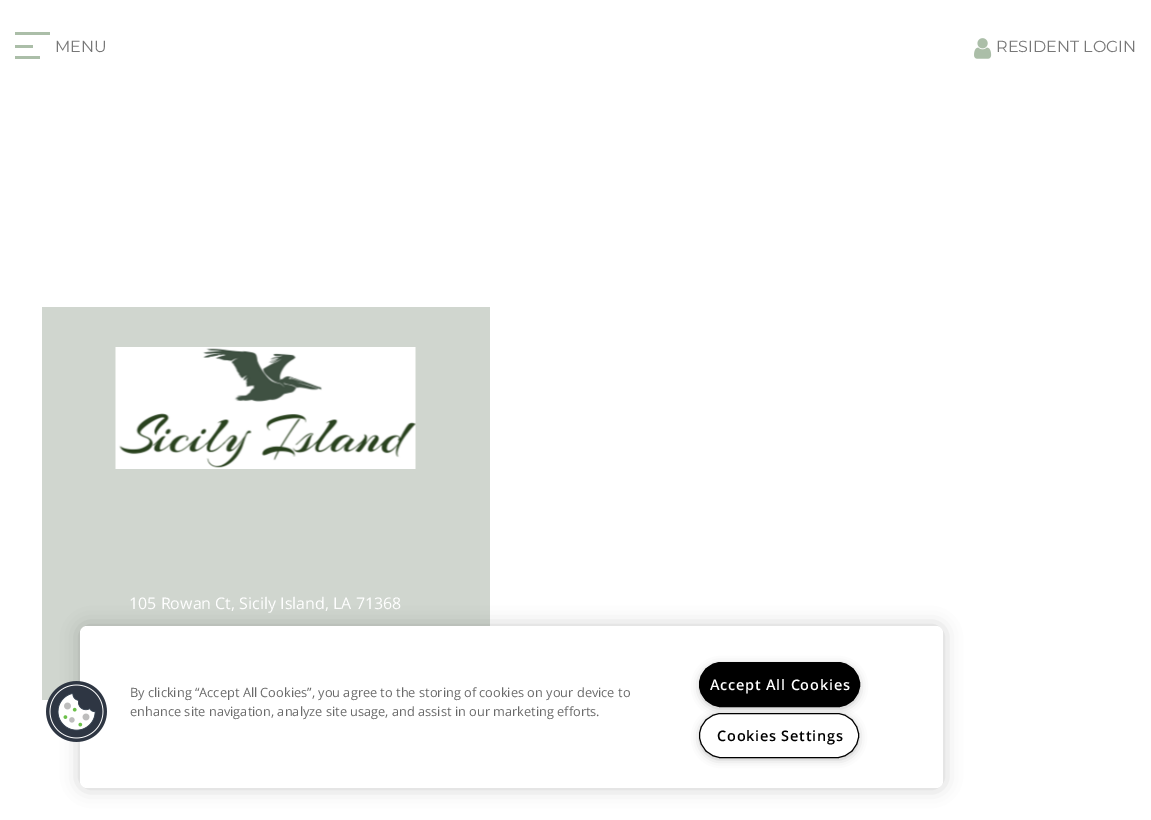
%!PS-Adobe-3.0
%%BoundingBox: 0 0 1151 820
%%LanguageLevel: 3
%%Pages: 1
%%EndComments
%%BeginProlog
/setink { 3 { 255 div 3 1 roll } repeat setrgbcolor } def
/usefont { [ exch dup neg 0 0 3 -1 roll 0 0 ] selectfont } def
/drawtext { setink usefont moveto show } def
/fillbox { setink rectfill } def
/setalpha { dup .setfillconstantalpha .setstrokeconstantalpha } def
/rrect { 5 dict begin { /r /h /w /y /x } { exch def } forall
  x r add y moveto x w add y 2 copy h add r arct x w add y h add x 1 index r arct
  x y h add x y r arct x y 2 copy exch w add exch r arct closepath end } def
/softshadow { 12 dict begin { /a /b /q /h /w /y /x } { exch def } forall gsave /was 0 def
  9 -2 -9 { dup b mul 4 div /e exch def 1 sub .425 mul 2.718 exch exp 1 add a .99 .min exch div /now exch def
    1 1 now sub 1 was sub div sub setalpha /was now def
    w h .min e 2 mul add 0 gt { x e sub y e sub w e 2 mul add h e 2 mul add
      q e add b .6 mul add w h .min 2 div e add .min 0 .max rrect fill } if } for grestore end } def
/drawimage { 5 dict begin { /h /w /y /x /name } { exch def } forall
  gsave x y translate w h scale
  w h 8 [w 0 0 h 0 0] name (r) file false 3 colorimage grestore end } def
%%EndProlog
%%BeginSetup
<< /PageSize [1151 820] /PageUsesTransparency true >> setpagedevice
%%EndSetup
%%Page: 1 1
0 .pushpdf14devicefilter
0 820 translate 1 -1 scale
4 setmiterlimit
0 0 1151 820 255 255 255 fillbox
15 32 35 3 171 190 168 fillbox
15 45 18 3 171 190 168 fillbox
15 56 25 3 171 190 168 fillbox
(MENU) 55 52 /Montserrat-Thin 16 119 119 119 drawtext
(assets/img1.rgb) 974 38 18 21 drawimage
(RESIDENT LOGIN) 996 52 /Montserrat-Thin 16 119 119 119 drawtext
42 307 448 393 208 214 207 fillbox
(assets/img2.rgb) 115 347 301 122 drawimage
(105 Rowan Ct, Sicily Island, LA 71368) 129 609 /OpenSans-Regular 16 255 255 255 drawtext
0 0 0 setink
80 626 863 162 7 9 0.2 softshadow
255 255 255 setink
80 626 863 162 7 rrect fill
(assets/img3.rgb) 46 681 61 61 drawimage
(By clicking “Accept All Cookies”, you agree to the storing of cookies on your device to) 130 697 /OpenSans-Regular 12.8 105 105 105 drawtext
(enhance site navigation, analyze site usage, and assist in our marketing efforts.) 130 716 /OpenSans-Regular 12.8 105 105 105 drawtext
153 153 153 setink
702 667 155 39 19.5 5 1 softshadow
0 0 0 setink
699.5 662.5 160 44 22 rrect gsave fill grestore
stroke
/OpenSans-SemiBold 14.5 usefont
255 255 255 setink
710 690 moveto 0.75 0 (Accept All Cookies) ashow
153 153 153 setink
702 718 154 39 19.5 5 1 softshadow
255 255 255 setink
699.5 713.5 159 44 22 rrect gsave fill grestore
0 0 0 setink
stroke
717 741 moveto 0.75 0 (Cookies Settings) ashow
.poppdf14devicefilter showpage
%%EOF
